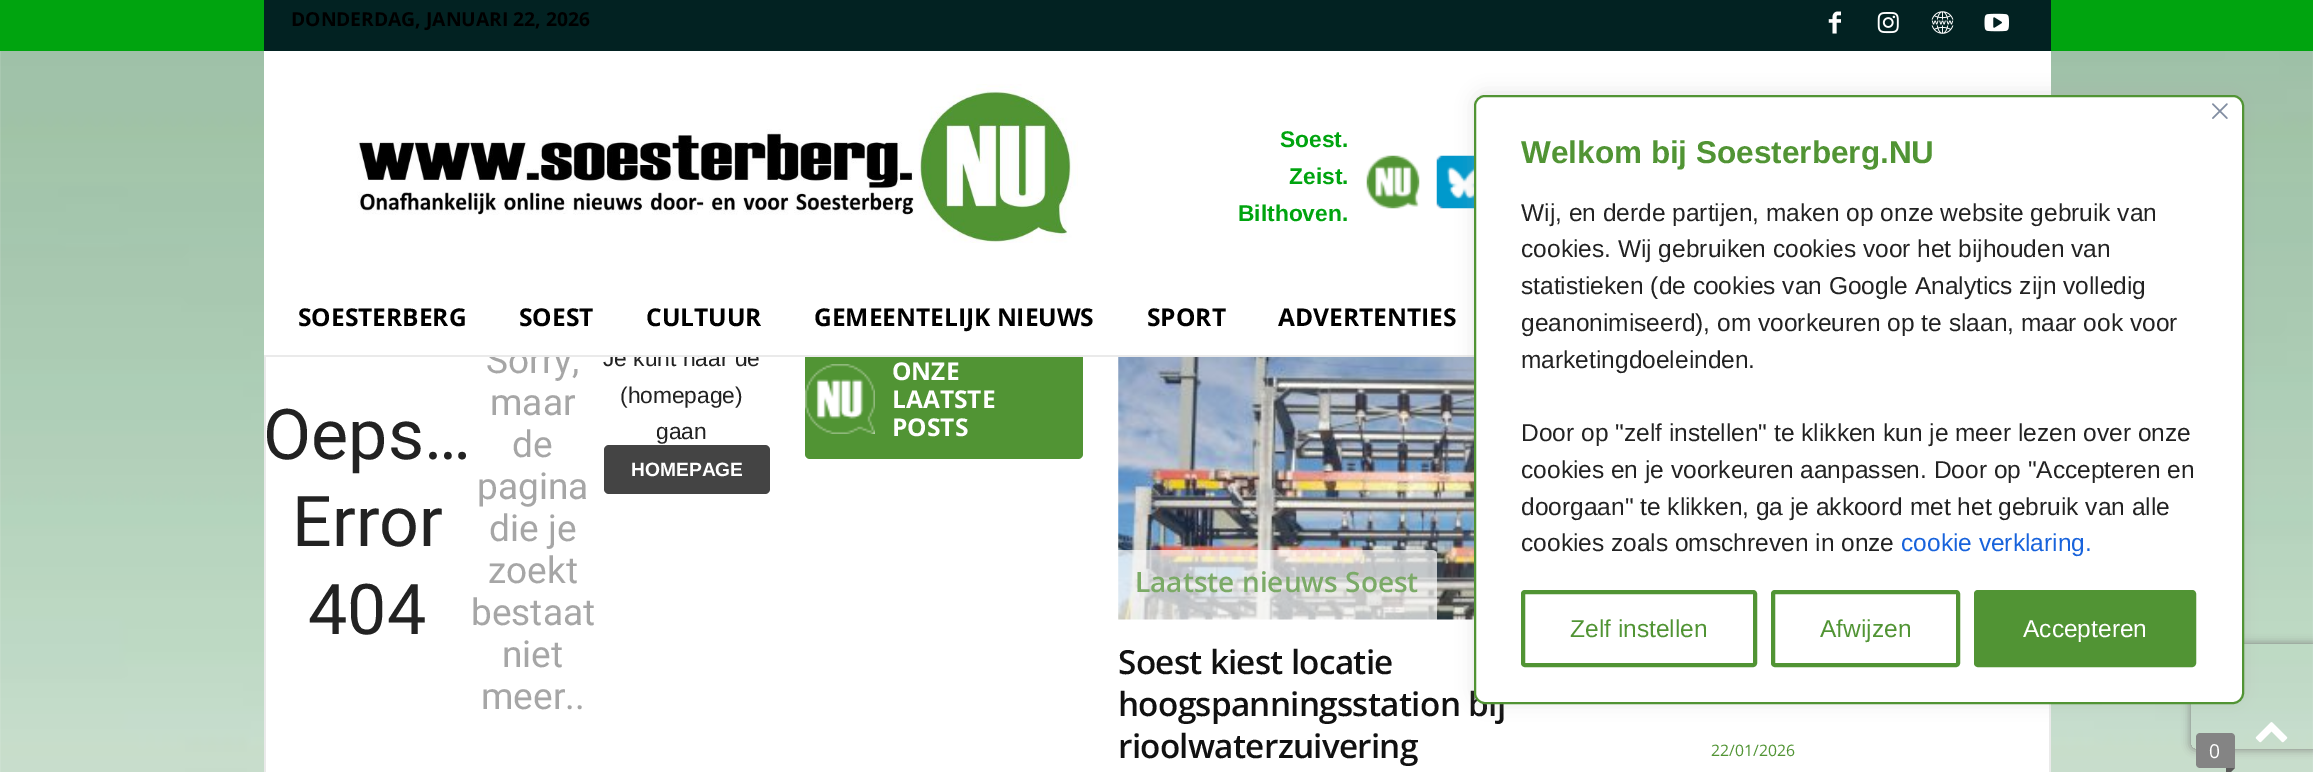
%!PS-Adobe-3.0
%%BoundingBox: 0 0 2313 772
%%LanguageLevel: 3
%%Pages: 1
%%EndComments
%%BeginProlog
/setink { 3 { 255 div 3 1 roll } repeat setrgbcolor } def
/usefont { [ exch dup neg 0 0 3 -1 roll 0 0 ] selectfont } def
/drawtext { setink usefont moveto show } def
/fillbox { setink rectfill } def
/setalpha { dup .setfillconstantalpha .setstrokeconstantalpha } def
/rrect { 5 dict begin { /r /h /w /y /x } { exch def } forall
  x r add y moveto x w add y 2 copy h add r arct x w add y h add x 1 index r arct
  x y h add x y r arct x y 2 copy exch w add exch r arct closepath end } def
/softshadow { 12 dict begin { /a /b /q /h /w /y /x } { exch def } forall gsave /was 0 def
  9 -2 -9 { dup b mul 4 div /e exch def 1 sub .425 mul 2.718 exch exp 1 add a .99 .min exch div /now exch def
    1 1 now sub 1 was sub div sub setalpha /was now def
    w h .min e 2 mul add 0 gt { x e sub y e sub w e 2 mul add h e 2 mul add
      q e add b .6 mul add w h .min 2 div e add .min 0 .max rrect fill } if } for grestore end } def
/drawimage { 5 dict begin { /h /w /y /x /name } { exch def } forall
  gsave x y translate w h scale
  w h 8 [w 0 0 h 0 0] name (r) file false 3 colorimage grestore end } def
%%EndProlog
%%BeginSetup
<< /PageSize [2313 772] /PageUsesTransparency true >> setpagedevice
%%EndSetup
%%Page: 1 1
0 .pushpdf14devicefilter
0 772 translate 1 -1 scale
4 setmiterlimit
0 0 2313 772 255 255 255 fillbox
0 0 2313 51 0 164 15 fillbox
264 0 1787 51 2 34 34 fillbox
(DONDERDAG, JANUARI 22, 2026) 291 26 /OpenSans-Bold 19.25 0 0 0 drawtext
(assets/img1.rgb) 1828 11 13 23 drawimage
(assets/img2.rgb) 1877 12 22 22 drawimage
(assets/img3.rgb) 1931 11 23 23 drawimage
(assets/img4.rgb) 1984 13 25 19 drawimage
(assets/img10.rgb) 0 51 2313 721 drawimage
264 51 1787 227 255 255 255 fillbox
(assets/img5.rgb) 357 84 721 159 drawimage
(Soest.) 1280 147 /LiberationSans-Bold 22.75 0 164 15 drawtext
(Zeist.) 1289 184 /LiberationSans-Bold 22.75 0 164 15 drawtext
(Bilthoven.) 1238 221 /LiberationSans-Bold 22.75 0 164 15 drawtext
(assets/img6.rgb) 1366 155 54 54 drawimage
(assets/img7.rgb) 1436 155 38 54 drawimage
266 357 1783 415 255 255 255 fillbox
(Sorry,) 486 373 /Roboto-Regular 37 166 166 166 drawtext
(Je kunt naar de) 603 366 /LiberationSans-Regular 22.75 34 34 34 drawtext
81 148 52 setink
805 340 278 119 5 rrect fill
264 278 1210 77 255 255 255 fillbox
264 355 1210 2 234 234 234 fillbox
(SOESTERBERG) 298 326 /OpenSans-Bold 24.5 0 0 0 drawtext
(SOEST) 519 326 /OpenSans-Bold 24.5 0 0 0 drawtext
(CULTUUR) 646 326 /OpenSans-Bold 24.5 0 0 0 drawtext
(GEMEENTELIJK NIEUWS) 814 326 /OpenSans-Bold 24.5 0 0 0 drawtext
(SPORT) 1147 326 /OpenSans-Bold 24.5 0 0 0 drawtext
(ADVERTENTIES) 1278 326 /OpenSans-Bold 24.5 0 0 0 drawtext
264 357 2 415 234 234 234 fillbox
(maar) 490 415 /Roboto-Regular 37 166 166 166 drawtext
(de) 512 457 /Roboto-Regular 37 166 166 166 drawtext
(pagina) 477 499 /Roboto-Regular 37 166 166 166 drawtext
(die je) 489 541 /Roboto-Regular 37 166 166 166 drawtext
(zoekt) 488 583 /Roboto-Regular 37 166 166 166 drawtext
(bestaat) 471 625 /Roboto-Regular 37 166 166 166 drawtext
(niet) 502 667 /Roboto-Regular 37 166 166 166 drawtext
(meer..) 481 709 /Roboto-Regular 37 166 166 166 drawtext
(\(homepage\)) 620 403 /LiberationSans-Regular 22.75 34 34 34 drawtext
(gaan) 656 439 /LiberationSans-Regular 22.75 34 34 34 drawtext
68 68 68 setink
604 445 166 49 5 rrect fill
(HOMEPAGE) 631 476 /LiberationSans-Bold 19.25 255 255 255 drawtext
(assets/img8.rgb) 805 364 70 70 drawimage
(ONZE) 892 380 /OpenSans-Bold 24.5 255 255 255 drawtext
(LAATSTE) 892 408 /OpenSans-Bold 24.5 255 255 255 drawtext
(POSTS) 892 436 /OpenSans-Bold 24.5 255 255 255 drawtext
(Oeps…) 263 459 /Roboto-Regular 70 34 34 34 drawtext
(Error) 292 546 /Roboto-Regular 70 34 34 34 drawtext
(404) 308 634 /Roboto-Regular 70 34 34 34 drawtext
(assets/img9.rgb) 1118 357 356 263 drawimage
0.7 setalpha
255 255 255 setink
1118 550 moveto 1432 550 lineto 1435 550 1437 552 1437 555 curveto 1437 620 lineto 1118 620 lineto closepath fill
1 setalpha
(Laatste nieuws Soest) 1135 592 /OpenSans-SemiBold 28 123 170 103 drawtext
/OpenSans-SemiBold 33.25 usefont
17 17 17 setink
1118 674 moveto -0.7 0 (Soest kiest locatie) ashow
1118 716 moveto -0.7 0 (hoogspanningsstation bij) ashow
1118 758 moveto -0.7 0 (rioolwaterzuivering) ashow
(22/01/2026) 1711 756 /OpenSans-Regular 15.75 81 148 52 drawtext
(assets/img12.rgb) 2255 722 33 21 drawimage
gsave
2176 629 moveto 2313 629 lineto 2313 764 lineto 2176 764 lineto closepath 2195 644 moveto 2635 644 lineto 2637 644 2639 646 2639 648 curveto 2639 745 lineto 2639 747 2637 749 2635 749 curveto 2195 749 lineto 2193 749 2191 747 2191 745 curveto 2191 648 lineto 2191 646 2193 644 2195 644 curveto closepath eoclip newpath
128 128 128 setink
2191 644 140 105 4 4.5 1 softshadow
grestore
132 132 132 setink
2200 733 moveto 2231 733 lineto 2233 733 2235 735 2235 737 curveto 2235 768 lineto 2200 768 lineto 2198 768 2196 766 2196 764 curveto 2196 737 lineto 2196 735 2198 733 2200 733 curveto closepath fill
(0) 2209 758 /OpenSans-Regular 19.25 255 255 255 drawtext
91 91 91 setink
2226 768 moveto 2235 768 lineto 2226 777 lineto closepath fill
2049 704 2 68 234 234 234 fillbox
172 171 171 setink
1474 93 770 609 11 9 0.3 softshadow
255 255 255 setink
1475 96 768 607 10 rrect gsave fill grestore
81 148 52 setink
2 setlinewidth
stroke
(assets/img11.rgb) 2212 103 16 16 drawimage
(Welkom bij Soesterberg.NU) 1521 163 /LiberationSans-Bold 31.5 81 148 52 drawtext
(Wij, en derde partijen, maken op onze website gebruik van) 1521 221 /LiberationSans-Regular 24.5 34 34 34 drawtext
(cookies. Wij gebruiken cookies voor het bijhouden van) 1521 257 /LiberationSans-Regular 24.5 34 34 34 drawtext
(statistieken \(de cookies van Google Analytics zijn volledig) 1521 294 /LiberationSans-Regular 24.5 34 34 34 drawtext
(geanonimiseerd\), om voorkeuren op te slaan, maar ook voor) 1521 331 /LiberationSans-Regular 24.5 34 34 34 drawtext
(marketingdoeleinden.) 1521 368 /LiberationSans-Regular 24.5 34 34 34 drawtext
(Door op "zelf instellen" te klikken kun je meer lezen over onze) 1521 441 /LiberationSans-Regular 24.5 34 34 34 drawtext
(cookies en je voorkeuren aanpassen. Door op "Accepteren en) 1521 478 /LiberationSans-Regular 24.5 34 34 34 drawtext
(doorgaan" te klikken, ga je akkoord met het gebruik van alle) 1521 515 /LiberationSans-Regular 24.5 34 34 34 drawtext
(cookies zoals omschreven in onze) 1521 551 /LiberationSans-Regular 24.5 34 34 34 drawtext
(cookie verklaring.) 1901 551 /LiberationSans-Regular 24.5 24 99 220 drawtext
81 148 52 setink
4 setlinewidth
1523 592 232 73 2 rrect stroke
(Zelf instellen) 1570 637 /LiberationSans-Regular 24.5 81 148 52 drawtext
1773 592 185 73 2 rrect stroke
(Afwijzen) 1820 637 /LiberationSans-Regular 24.5 81 148 52 drawtext
1976 592 218 73 2 rrect gsave fill grestore
stroke
(Accepteren) 2023 637 /LiberationSans-Regular 24.5 255 255 255 drawtext
.poppdf14devicefilter showpage
%%EOF
